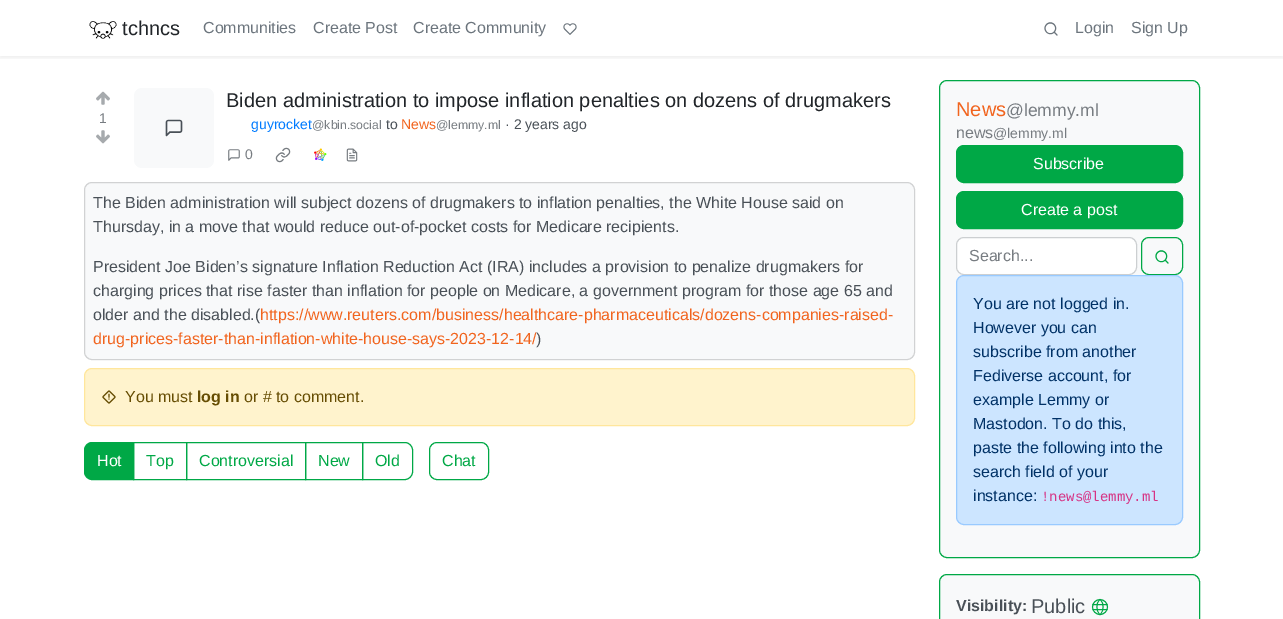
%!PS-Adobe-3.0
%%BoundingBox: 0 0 1283 619
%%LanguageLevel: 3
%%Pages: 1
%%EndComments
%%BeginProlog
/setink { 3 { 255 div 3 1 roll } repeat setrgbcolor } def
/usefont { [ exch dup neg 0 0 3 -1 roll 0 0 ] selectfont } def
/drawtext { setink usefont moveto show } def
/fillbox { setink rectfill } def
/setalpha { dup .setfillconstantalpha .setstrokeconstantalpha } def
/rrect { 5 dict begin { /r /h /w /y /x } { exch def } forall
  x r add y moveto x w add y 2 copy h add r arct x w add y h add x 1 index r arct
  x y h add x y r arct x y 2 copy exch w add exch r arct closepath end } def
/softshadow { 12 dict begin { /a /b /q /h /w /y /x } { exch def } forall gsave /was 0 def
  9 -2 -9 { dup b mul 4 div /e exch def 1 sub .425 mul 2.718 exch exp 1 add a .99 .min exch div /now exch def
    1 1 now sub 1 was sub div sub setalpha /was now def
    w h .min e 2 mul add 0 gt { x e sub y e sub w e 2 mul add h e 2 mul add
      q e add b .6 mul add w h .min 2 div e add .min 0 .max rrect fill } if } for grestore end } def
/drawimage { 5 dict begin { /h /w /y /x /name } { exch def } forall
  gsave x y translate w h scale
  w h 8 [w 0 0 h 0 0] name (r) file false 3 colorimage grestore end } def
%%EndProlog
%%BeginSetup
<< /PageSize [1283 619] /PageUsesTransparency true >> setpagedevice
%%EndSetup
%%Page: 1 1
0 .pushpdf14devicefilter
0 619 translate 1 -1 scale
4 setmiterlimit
0 0 1283 619 255 255 255 fillbox
gsave
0 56 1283 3 rectclip
34 34 34 setink
0 2 1283 56 0 2 0.07 softshadow
grestore
(assets/img1.rgb) 89 21 28 18 drawimage
(tchncs) 122 35 /LiberationSans-Regular 20 33 37 41 drawtext
(Communities) 203 33 /LiberationSans-Regular 16 108 117 125 drawtext
(Create Post) 313 33 /LiberationSans-Regular 16 108 117 125 drawtext
(Create Community) 413 33 /LiberationSans-Regular 16 108 117 125 drawtext
(assets/img2.rgb) 563 23 14 12 drawimage
(assets/img3.rgb) 1044 22 14 14 drawimage
(Login) 1075 33 /LiberationSans-Regular 16 108 117 125 drawtext
(Sign Up) 1131 33 /LiberationSans-Regular 16 108 117 125 drawtext
(assets/img4.rgb) 96 91 14 14 drawimage
(1) 99 123 /LiberationSans-Regular 14 119 124 129 drawtext
(assets/img5.rgb) 96 130 14 14 drawimage
248 249 250 setink
134 88 80 80 8 rrect fill
(assets/img6.rgb) 165 119 18 18 drawimage
(Biden administration to impose inflation penalties on dozens of drugmakers) 226 107 /LiberationSans-Regular 20 33 37 41 drawtext
(guyrocket) 251 129 /LiberationSans-Regular 14 0 123 255 drawtext
(@kbin.social) 312 129 /LiberationSans-Regular 12.25 119 124 129 drawtext
(to) 386 129 /LiberationSans-Regular 14 73 80 87 drawtext
(News) 401 129 /LiberationSans-Regular 14 241 100 30 drawtext
(@lemmy.ml) 436 129 /LiberationSans-Regular 12.25 119 124 129 drawtext
(· 2 years ago) 505 129 /LiberationSans-Regular 14 73 80 87 drawtext
(assets/img7.rgb) 228 149 12 12 drawimage
(0) 245 159 /LiberationSans-Regular 14 119 124 129 drawtext
(assets/img8.rgb) 275 147 16 16 drawimage
(assets/img9.rgb) 314 148 13 13 drawimage
(assets/img10.rgb) 346 148 12 14 drawimage
248 249 250 setink
84 182 831 178 8 rrect fill
0.18 setalpha
34 34 34 setink
84.5 182.5 830 177 7.5 rrect stroke
1 setalpha
(The Biden administration will subject dozens of drugmakers to inflation penalties, the White House said on) 93 208 /LiberationSans-Regular 16 73 80 87 drawtext
(Thursday, in a move that would reduce out-of-pocket costs for Medicare recipients.) 93 232 /LiberationSans-Regular 16 73 80 87 drawtext
(President Joe Biden’s signature Inflation Reduction Act \(IRA\) includes a provision to penalize drugmakers for) 93 272 /LiberationSans-Regular 16 73 80 87 drawtext
(charging prices that rise faster than inflation for people on Medicare, a government program for those age 65 and) 93 296 /LiberationSans-Regular 16 73 80 87 drawtext
(older and the disabled.\() 93 320 /LiberationSans-Regular 16 73 80 87 drawtext
(https://www.reuters.com/business/healthcare-pharmaceuticals/dozens-companies-raised-) 260 320 /LiberationSans-Regular 16 241 100 30 drawtext
(drug-prices-faster-than-inflation-white-house-says-2023-12-14/) 93 344 /LiberationSans-Regular 16 241 100 30 drawtext
(\)) 536 344 /LiberationSans-Regular 16 73 80 87 drawtext
255 243 205 setink
84.5 368.5 830 57 7.5 rrect gsave fill grestore
255 230 156 setink
stroke
(assets/img11.rgb) 102 390 14 14 drawimage
(You must) 125 402 /LiberationSans-Regular 16 102 77 3 drawtext
(log in) 197 402 /LiberationSans-Bold 16 102 77 3 drawtext
(or # to comment.) 244 402 /LiberationSans-Regular 16 102 77 3 drawtext
0 168 70 setink
133.5 442.5 53 37 rectstroke
92 442.5 moveto 133.5 442.5 lineto 133.5 479.5 lineto 92 479.5 lineto 88 479.5 84.5 476 84.5 472 curveto 84.5 450 lineto 84.5 446 88 442.5 92 442.5 curveto closepath gsave fill grestore
stroke
(Hot) 97 466 /LiberationSans-Regular 16 255 255 255 drawtext
(Top) 146 466 /LiberationSans-Regular 16 0 168 70 drawtext
186.5 442.5 119 37 rectstroke
(Controversial) 199 466 /LiberationSans-Regular 16 0 168 70 drawtext
305.5 442.5 57 37 rectstroke
(New) 318 466 /LiberationSans-Regular 16 0 168 70 drawtext
362.5 442.5 moveto 405 442.5 lineto 409 442.5 412.5 446 412.5 450 curveto 412.5 472 lineto 412.5 476 409 479.5 405 479.5 curveto 362.5 479.5 lineto closepath stroke
(Old) 375 466 /LiberationSans-Regular 16 0 168 70 drawtext
429.5 442.5 59 37 7.5 rrect stroke
(Chat) 442 466 /LiberationSans-Regular 16 0 168 70 drawtext
248 249 250 setink
939.5 80.5 260 477 7.5 rrect gsave fill grestore
0 168 70 setink
stroke
(News) 956 116 /LiberationSans-Regular 20 241 100 30 drawtext
(@lemmy.ml) 1006 116 /LiberationSans-Regular 17.5 119 124 129 drawtext
(news) 956 138 /LiberationSans-Regular 16 119 124 129 drawtext
(@lemmy.ml) 993 138 /LiberationSans-Regular 14 119 124 129 drawtext
0 168 70 setink
956.5 145.5 226 37 7.5 rrect gsave fill grestore
stroke
(Subscribe) 1033 169 /LiberationSans-Regular 16 255 255 255 drawtext
0 168 70 setink
956.5 191.5 226 37 7.5 rrect gsave fill grestore
stroke
(Create a post) 1021 215 /LiberationSans-Regular 16 255 255 255 drawtext
956.5 237.5 180 37 7.5 rrect gsave fill grestore
204 207 209 setink
stroke
(Search...) 969 261 /LiberationSans-Regular 16 119 124 129 drawtext
0 168 70 setink
1141.5 237.5 41 37 7.5 rrect stroke
(assets/img12.rgb) 1155 250 14 14 drawimage
204 229 255 setink
956.5 275.5 226 249 7.5 rrect gsave fill grestore
153 202 255 setink
stroke
(You are not logged in.) 973 309 /LiberationSans-Regular 16 0 49 102 drawtext
(However you can) 973 333 /LiberationSans-Regular 16 0 49 102 drawtext
(subscribe from another) 973 357 /LiberationSans-Regular 16 0 49 102 drawtext
(Fediverse account, for) 973 381 /LiberationSans-Regular 16 0 49 102 drawtext
(example Lemmy or) 973 405 /LiberationSans-Regular 16 0 49 102 drawtext
(Mastodon. To do this,) 973 429 /LiberationSans-Regular 16 0 49 102 drawtext
(paste the following into the) 973 453 /LiberationSans-Regular 16 0 49 102 drawtext
(search field of your) 973 477 /LiberationSans-Regular 16 0 49 102 drawtext
(instance:) 973 501 /LiberationSans-Regular 16 0 49 102 drawtext
(!news@lemmy.ml) 1041 501 /LiberationMono-Regular 14 214 51 132 drawtext
248 249 250 setink
939.5 574.5 260 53 7.5 rrect gsave fill grestore
0 168 70 setink
stroke
(Visibility:) 956 611 /LiberationSans-Bold 16 73 80 87 drawtext
(Public) 1031 613 /LiberationSans-Regular 20 73 80 87 drawtext
(assets/img13.rgb) 1091 598 18 18 drawimage
.poppdf14devicefilter showpage
%%EOF
